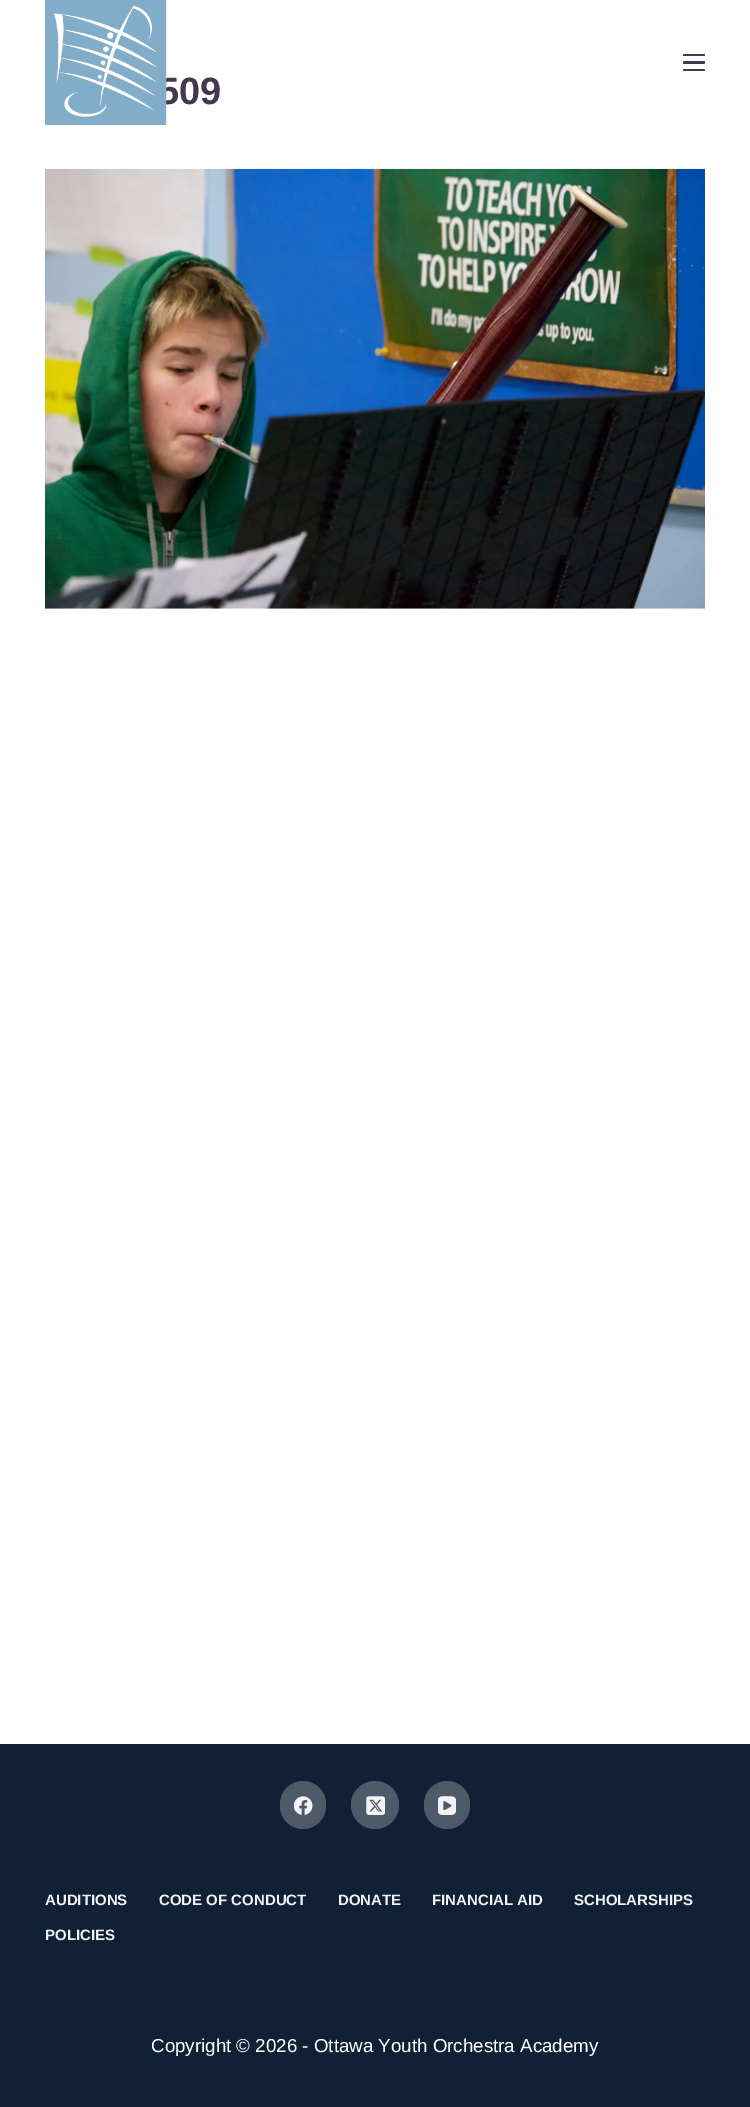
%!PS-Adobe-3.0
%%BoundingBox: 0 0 750 2107
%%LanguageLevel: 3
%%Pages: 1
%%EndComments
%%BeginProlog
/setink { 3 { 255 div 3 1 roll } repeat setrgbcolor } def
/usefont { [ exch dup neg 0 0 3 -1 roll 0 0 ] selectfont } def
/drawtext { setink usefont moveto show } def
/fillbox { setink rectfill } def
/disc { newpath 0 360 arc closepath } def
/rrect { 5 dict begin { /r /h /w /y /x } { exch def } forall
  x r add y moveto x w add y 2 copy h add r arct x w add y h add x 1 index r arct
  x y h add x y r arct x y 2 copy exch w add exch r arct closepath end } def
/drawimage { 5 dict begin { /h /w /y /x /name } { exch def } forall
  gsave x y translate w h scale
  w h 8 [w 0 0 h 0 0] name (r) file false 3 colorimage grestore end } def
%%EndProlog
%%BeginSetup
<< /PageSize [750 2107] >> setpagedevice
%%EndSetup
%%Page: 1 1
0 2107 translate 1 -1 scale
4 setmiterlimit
0 0 750 2107 255 255 255 fillbox
(509) 158 104 /LiberationSans-Bold 38 68 56 80 drawtext
(assets/img1.rgb) 45 0 122 125 drawimage
683 54 22 2 1 rrect fill
683 61 22 3 1.5 rrect fill
683 69 22 2 1 rrect fill
(assets/img2.rgb) 45 168 660 441 drawimage
0 1744 750 363 16 33 54 fillbox
77 90 106 setink
280 1781 46 48 23 rrect fill
(assets/img3.rgb) 294 1796 19 19 drawimage
375 1805 24 disc fill
(assets/img4.rgb) 366 1796 19 19 drawimage
424 1781 46 48 23 rrect fill
(assets/img5.rgb) 438 1796 18 19 drawimage
(AUDITIONS) 45 1905 /LiberationSans-Bold 15 243 243 243 drawtext
(CODE OF CONDUCT) 159 1905 /LiberationSans-Bold 15 243 243 243 drawtext
(DONATE) 338 1905 /LiberationSans-Bold 15 243 243 243 drawtext
(FINANCIAL AID) 432 1905 /LiberationSans-Bold 15 243 243 243 drawtext
(SCHOLARSHIPS) 574 1905 /LiberationSans-Bold 15 243 243 243 drawtext
(POLICIES) 45 1940 /LiberationSans-Bold 15 243 243 243 drawtext
(Copyright © 2026 - Ottawa Youth Orchestra Academy) 151 2052 /LiberationSans-Regular 18.75 255 255 255 drawtext
showpage
%%EOF
